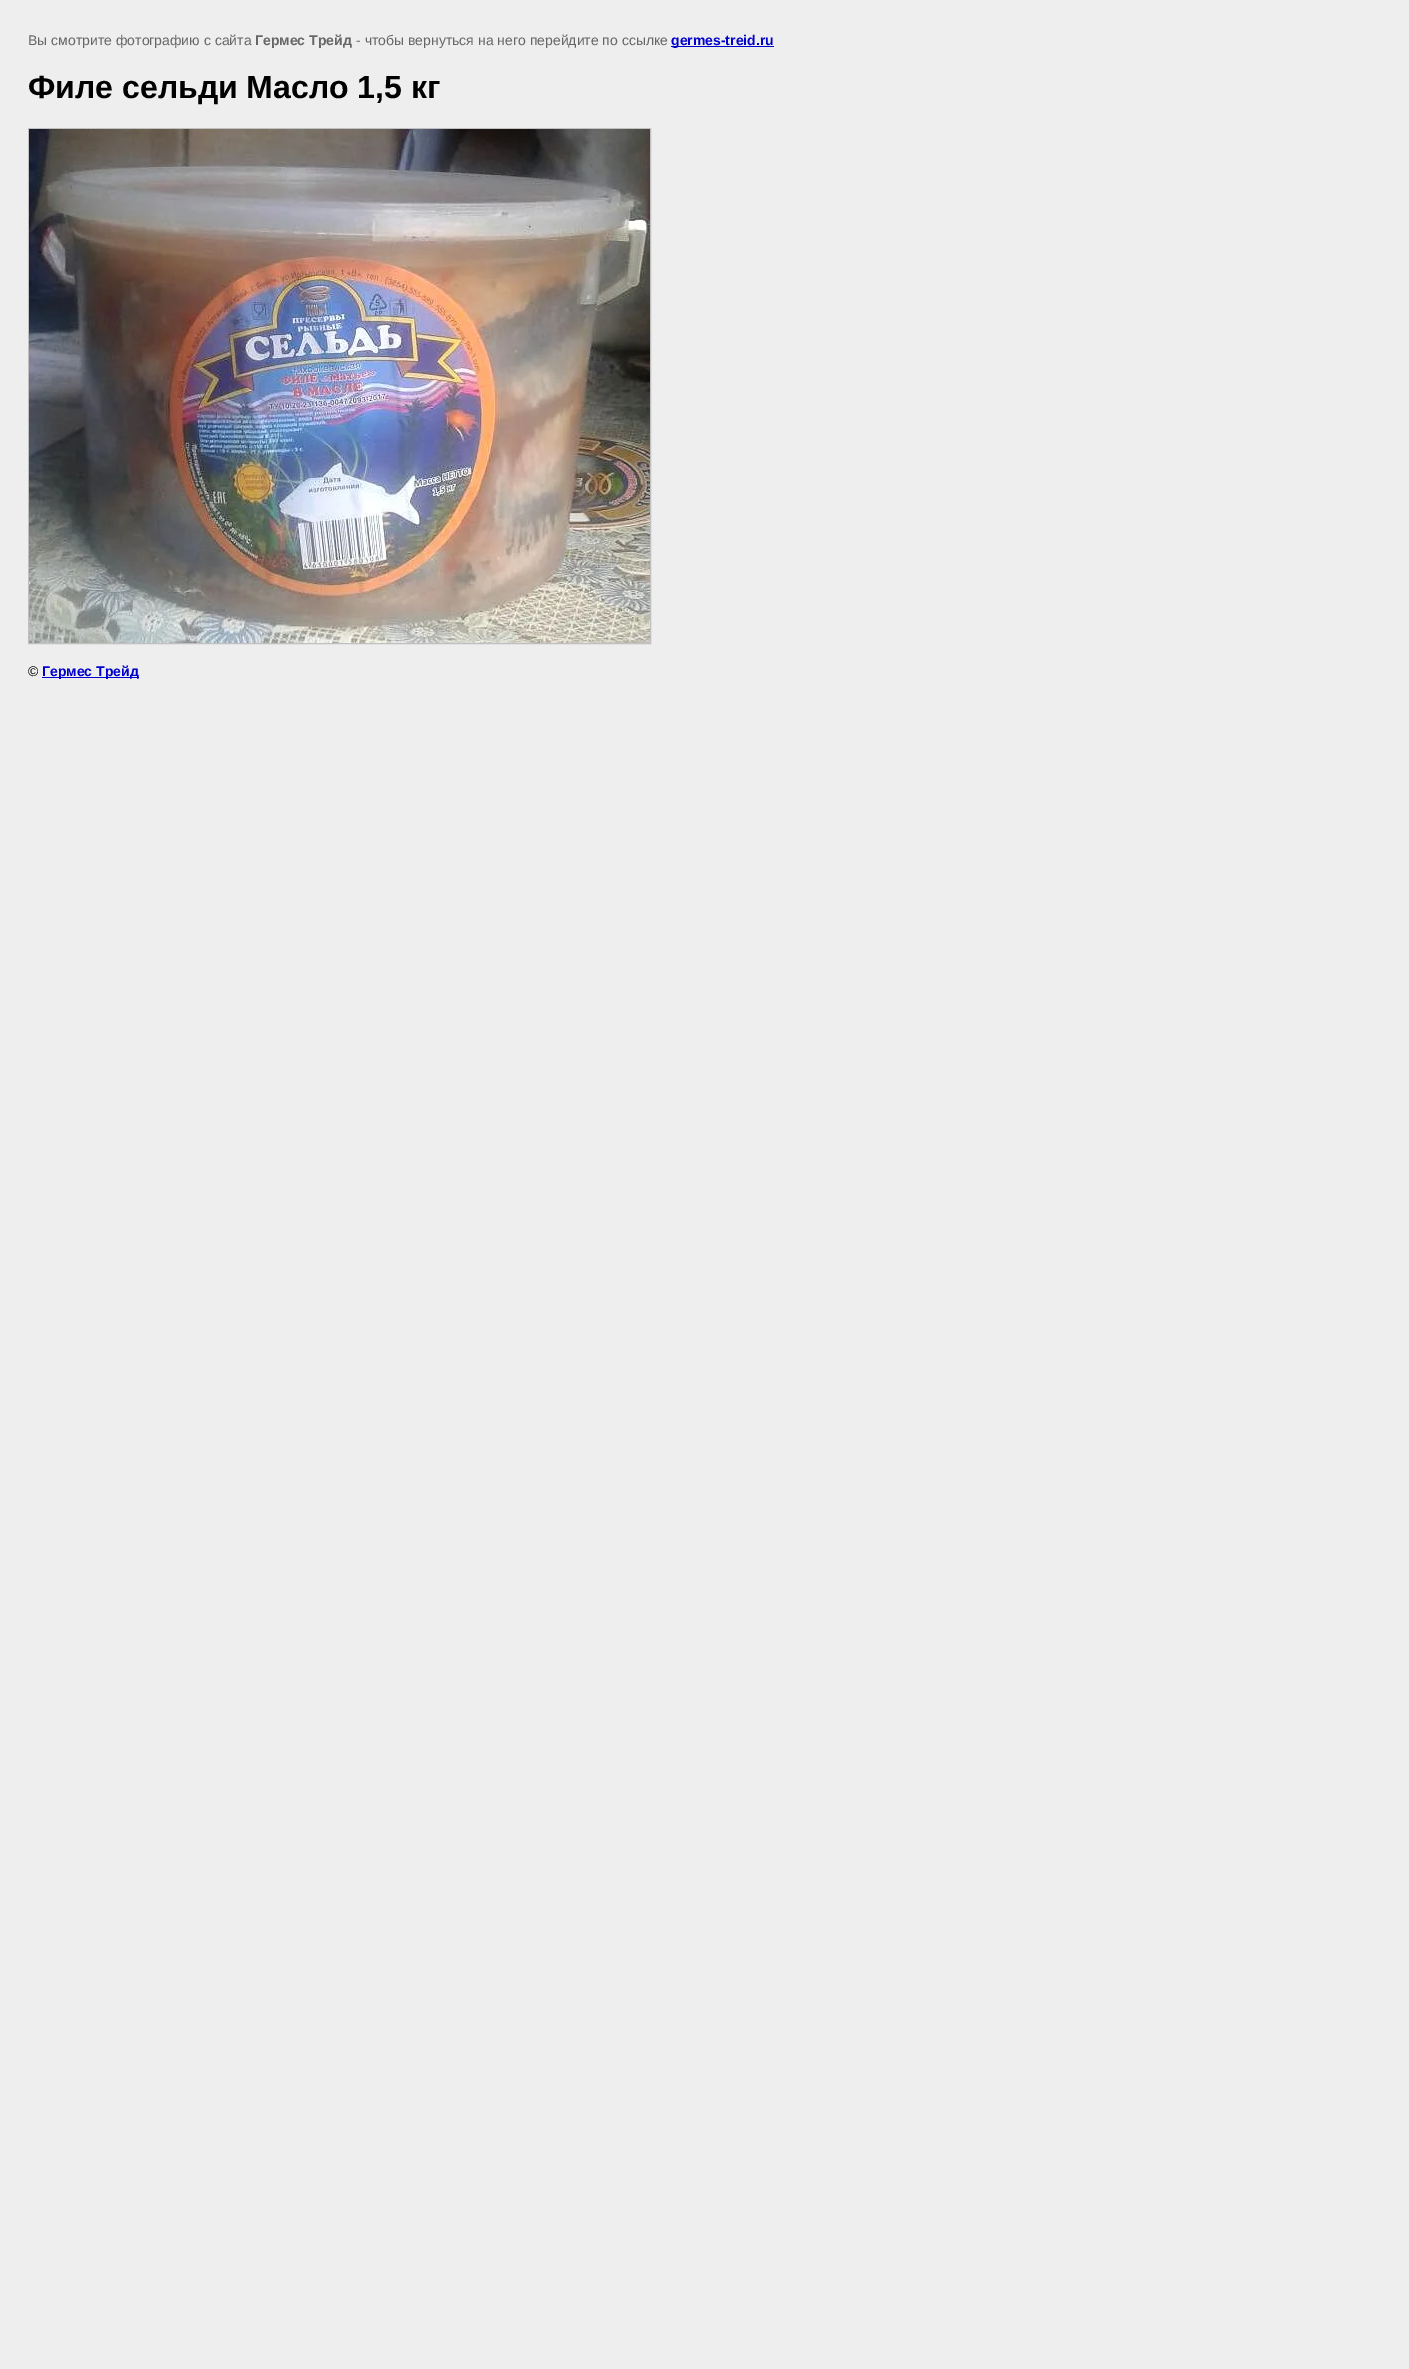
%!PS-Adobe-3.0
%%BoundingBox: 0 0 1409 2369
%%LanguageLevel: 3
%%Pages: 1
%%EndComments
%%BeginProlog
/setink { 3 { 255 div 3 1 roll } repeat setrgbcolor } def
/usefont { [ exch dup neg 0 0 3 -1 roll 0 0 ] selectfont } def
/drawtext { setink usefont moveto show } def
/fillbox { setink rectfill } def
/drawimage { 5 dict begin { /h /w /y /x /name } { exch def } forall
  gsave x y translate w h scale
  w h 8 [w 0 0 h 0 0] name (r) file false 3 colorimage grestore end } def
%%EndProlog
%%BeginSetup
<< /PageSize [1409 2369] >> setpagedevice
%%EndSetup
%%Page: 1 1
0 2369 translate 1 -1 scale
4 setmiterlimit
0 0 1409 2369 238 238 238 fillbox
(Вы смотрите фотографию с сайта) 28 45 /LiberationSans-Regular 14 102 102 102 drawtext
(Гермес Трейд) 255 45 /LiberationSans-Bold 14 102 102 102 drawtext
(- чтобы вернуться на него перейдите по ссылке) 356 45 /LiberationSans-Regular 14 102 102 102 drawtext
671 46 103 1 0 0 204 fillbox
(germes-treid.ru) 671 45 /LiberationSans-Bold 14 0 0 204 drawtext
(Филе сельди Масло 1,5 кг) 28 98 /LiberationSans-Bold 32 0 0 0 drawtext
192 192 192 setink
28.5 128.5 622 515 rectstroke
(assets/img1.rgb) 29 129 621 514 drawimage
(©) 28 676 /LiberationSans-Regular 14 0 0 0 drawtext
42 677 97 1 0 0 204 fillbox
(Гермес Трейд) 42 676 /LiberationSans-Bold 14 0 0 204 drawtext
showpage
%%EOF
